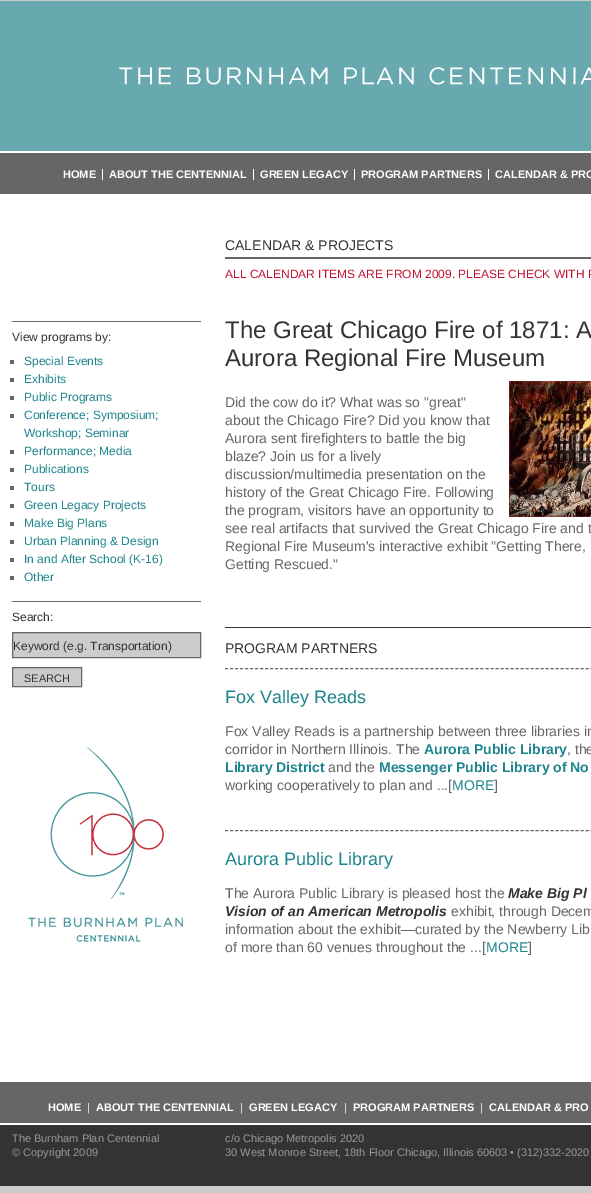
%!PS-Adobe-3.0
%%BoundingBox: 0 0 591 1193
%%LanguageLevel: 3
%%Pages: 1
%%EndComments
%%BeginProlog
/setink { 3 { 255 div 3 1 roll } repeat setrgbcolor } def
/usefont { [ exch dup neg 0 0 3 -1 roll 0 0 ] selectfont } def
/drawtext { setink usefont moveto show } def
/fillbox { setink rectfill } def
/drawimage { 5 dict begin { /h /w /y /x /name } { exch def } forall
  gsave x y translate w h scale
  w h 8 [w 0 0 h 0 0] name (r) file false 3 colorimage grestore end } def
%%EndProlog
%%BeginSetup
<< /PageSize [591 1193] >> setpagedevice
%%EndSetup
%%Page: 1 1
0 1193 translate 1 -1 scale
4 setmiterlimit
0 0 591 1193 204 204 204 fillbox
0 151 591 974 255 255 255 fillbox
(assets/img1.rgb) 0 1 591 150 drawimage
0 153 591 41 102 102 102 fillbox
(HOME) 63 178 /LiberationSans-Bold 11 255 255 255 drawtext
102 169 1 11 255 255 255 fillbox
(ABOUT THE CENTENNIAL) 109 178 /LiberationSans-Bold 11 255 255 255 drawtext
253 169 1 11 255 255 255 fillbox
(GREEN LEGACY) 260 178 /LiberationSans-Bold 11 255 255 255 drawtext
354 169 1 11 255 255 255 fillbox
(PROGRAM PARTNERS) 361 178 /LiberationSans-Bold 11 255 255 255 drawtext
488 169 1 11 255 255 255 fillbox
(CALENDAR & PRO) 495 178 /LiberationSans-Bold 11 255 255 255 drawtext
12 321 189 1 102 102 102 fillbox
(View programs by:) 12 341 /LiberationSans-Regular 12 51 51 51 drawtext
10 360 4 4 102 102 102 fillbox
(Special Events) 24 365 /LiberationSans-Regular 12 30 133 142 drawtext
10 378 4 4 102 102 102 fillbox
(Exhibits) 24 383 /LiberationSans-Regular 12 30 133 142 drawtext
10 396 4 4 102 102 102 fillbox
(Public Programs) 24 401 /LiberationSans-Regular 12 30 133 142 drawtext
10 414 4 4 102 102 102 fillbox
(Conference; Symposium;) 24 419 /LiberationSans-Regular 12 30 133 142 drawtext
(Workshop; Seminar) 24 437 /LiberationSans-Regular 12 30 133 142 drawtext
10 450 4 4 102 102 102 fillbox
(Performance; Media) 24 455 /LiberationSans-Regular 12 30 133 142 drawtext
10 468 4 4 102 102 102 fillbox
(Publications) 24 473 /LiberationSans-Regular 12 30 133 142 drawtext
10 486 4 4 102 102 102 fillbox
(Tours) 24 491 /LiberationSans-Regular 12 30 133 142 drawtext
10 504 4 4 102 102 102 fillbox
(Green Legacy Projects) 24 509 /LiberationSans-Regular 12 30 133 142 drawtext
10 522 4 4 102 102 102 fillbox
(Make Big Plans) 24 527 /LiberationSans-Regular 12 30 133 142 drawtext
10 540 4 4 102 102 102 fillbox
(Urban Planning & Design) 24 545 /LiberationSans-Regular 12 30 133 142 drawtext
10 558 4 4 102 102 102 fillbox
(In and After School \(K-16\)) 24 563 /LiberationSans-Regular 12 30 133 142 drawtext
10 576 4 4 102 102 102 fillbox
(Other) 24 581 /LiberationSans-Regular 12 30 133 142 drawtext
12 601 189 1 102 102 102 fillbox
(Search:) 12 621 /LiberationSans-Regular 12 51 51 51 drawtext
204 204 204 setink
12.5 632.5 moveto 200.5 632.5 lineto 200.5 657.5 lineto 12.5 657.5 lineto closepath gsave fill grestore
102 102 102 setink
stroke
(Keyword \(e.g. Transportation\)) 13 650 /LiberationSans-Regular 12 51 51 51 drawtext
204 204 204 setink
12.5 667.5 moveto 81.5 667.5 lineto 81.5 686.5 lineto 12.5 686.5 lineto closepath gsave fill grestore
102 102 102 setink
stroke
(SEARCH) 24 682 /LiberationSans-Regular 11 51 51 51 drawtext
(assets/img2.rgb) 28 747 156 195 drawimage
225 257 366 2 102 102 102 fillbox
(CALENDAR & PROJECTS) 225 250 /LiberationSans-Regular 14 51 51 51 drawtext
(ALL CALENDAR ITEMS ARE FROM 2009. PLEASE CHECK WITH P) 225 278 /LiberationSans-Regular 12 196 17 48 drawtext
(The Great Chicago Fire of 1871: A) 225 338 /LiberationSans-Regular 24 51 51 51 drawtext
(Aurora Regional Fire Museum) 225 366 /LiberationSans-Regular 24 51 51 51 drawtext
(assets/img3.rgb) 509 381 82 136 drawimage
(Did the cow do it? What was so "great") 225 407 /LiberationSans-Regular 14 102 102 102 drawtext
(about the Chicago Fire? Did you know that) 225 425 /LiberationSans-Regular 14 102 102 102 drawtext
(Aurora sent firefighters to battle the big) 225 443 /LiberationSans-Regular 14 102 102 102 drawtext
(blaze? Join us for a lively) 225 461 /LiberationSans-Regular 14 102 102 102 drawtext
(discussion/multimedia presentation on the) 225 479 /LiberationSans-Regular 14 102 102 102 drawtext
(history of the Great Chicago Fire. Following) 225 497 /LiberationSans-Regular 14 102 102 102 drawtext
(the program, visitors have an opportunity to) 225 515 /LiberationSans-Regular 14 102 102 102 drawtext
(see real artifacts that survived the Great Chicago Fire and t) 225 533 /LiberationSans-Regular 14 102 102 102 drawtext
(Regional Fire Museum's interactive exhibit "Getting There,) 225 551 /LiberationSans-Regular 14 102 102 102 drawtext
(Getting Rescued.") 225 569 /LiberationSans-Regular 14 102 102 102 drawtext
225 627 366 1 51 51 51 fillbox
(PROGRAM PARTNERS) 225 653 /LiberationSans-Regular 14 51 51 51 drawtext
102 102 102 setink
[3 2.01] 0 setdash
225 668.5 moveto 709 668.5 lineto stroke
(Fox Valley Reads) 225 703 /LiberationSans-Regular 18 30 133 142 drawtext
(Fox Valley Reads is a partnership between three libraries in) 225 736 /LiberationSans-Regular 14 102 102 102 drawtext
(corridor in Northern Illinois. The) 225 754 /LiberationSans-Regular 14 102 102 102 drawtext
(Aurora Public Library) 424 754 /LiberationSans-Bold 14 30 133 142 drawtext
(, the) 567 754 /LiberationSans-Regular 14 102 102 102 drawtext
(Library District) 225 772 /LiberationSans-Bold 14 30 133 142 drawtext
(and the) 328 772 /LiberationSans-Regular 14 102 102 102 drawtext
(Messenger Public Library of No) 379 772 /LiberationSans-Bold 14 30 133 142 drawtext
(working cooperatively to plan and ...[) 225 790 /LiberationSans-Regular 14 102 102 102 drawtext
(MORE) 452 790 /LiberationSans-Regular 14 30 133 142 drawtext
(]) 494 790 /LiberationSans-Regular 14 102 102 102 drawtext
225 830.5 moveto 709 830.5 lineto stroke
(Aurora Public Library) 225 865 /LiberationSans-Regular 18 30 133 142 drawtext
(The Aurora Public Library is pleased host the) 225 898 /LiberationSans-Regular 14 102 102 102 drawtext
(Make Big Pl) 508 898 /LiberationSans-BoldItalic 14 51 51 51 drawtext
(Vision of an American Metropolis) 225 916 /LiberationSans-BoldItalic 14 51 51 51 drawtext
(exhibit, through Decem) 451 916 /LiberationSans-Regular 14 102 102 102 drawtext
(information about the exhibit—curated by the Newberry Lib) 225 934 /LiberationSans-Regular 14 102 102 102 drawtext
(of more than 60 venues throughout the ...[) 225 952 /LiberationSans-Regular 14 102 102 102 drawtext
(MORE) 486 952 /LiberationSans-Regular 14 30 133 142 drawtext
(]) 528 952 /LiberationSans-Regular 14 102 102 102 drawtext
0 1082 591 41 102 102 102 fillbox
(HOME) 48 1111 /LiberationSans-Bold 11 255 255 255 drawtext
(|) 87 1111 /LiberationSans-Regular 11 255 255 255 drawtext
(ABOUT THE CENTENNIAL) 96 1111 /LiberationSans-Bold 11 255 255 255 drawtext
(|) 240 1111 /LiberationSans-Regular 11 255 255 255 drawtext
(GREEN LEGACY) 249 1111 /LiberationSans-Bold 11 255 255 255 drawtext
(|) 344 1111 /LiberationSans-Regular 11 255 255 255 drawtext
(PROGRAM PARTNERS) 353 1111 /LiberationSans-Bold 11 255 255 255 drawtext
(|) 480 1111 /LiberationSans-Regular 11 255 255 255 drawtext
(CALENDAR & PRO) 489 1111 /LiberationSans-Bold 11 255 255 255 drawtext
0 1125 591 61 51 51 51 fillbox
(The Burnham Plan Centennial) 12 1142 /LiberationSans-Regular 11 153 153 153 drawtext
(© Copyright 2009) 12 1156 /LiberationSans-Regular 11 153 153 153 drawtext
(c/o Chicago Metropolis 2020) 225 1142 /LiberationSans-Regular 11 153 153 153 drawtext
(30 West Monroe Street, 18th Floor Chicago, Illinois 60603 • \(312\)332-2020) 225 1156 /LiberationSans-Regular 11 153 153 153 drawtext
showpage
%%EOF
